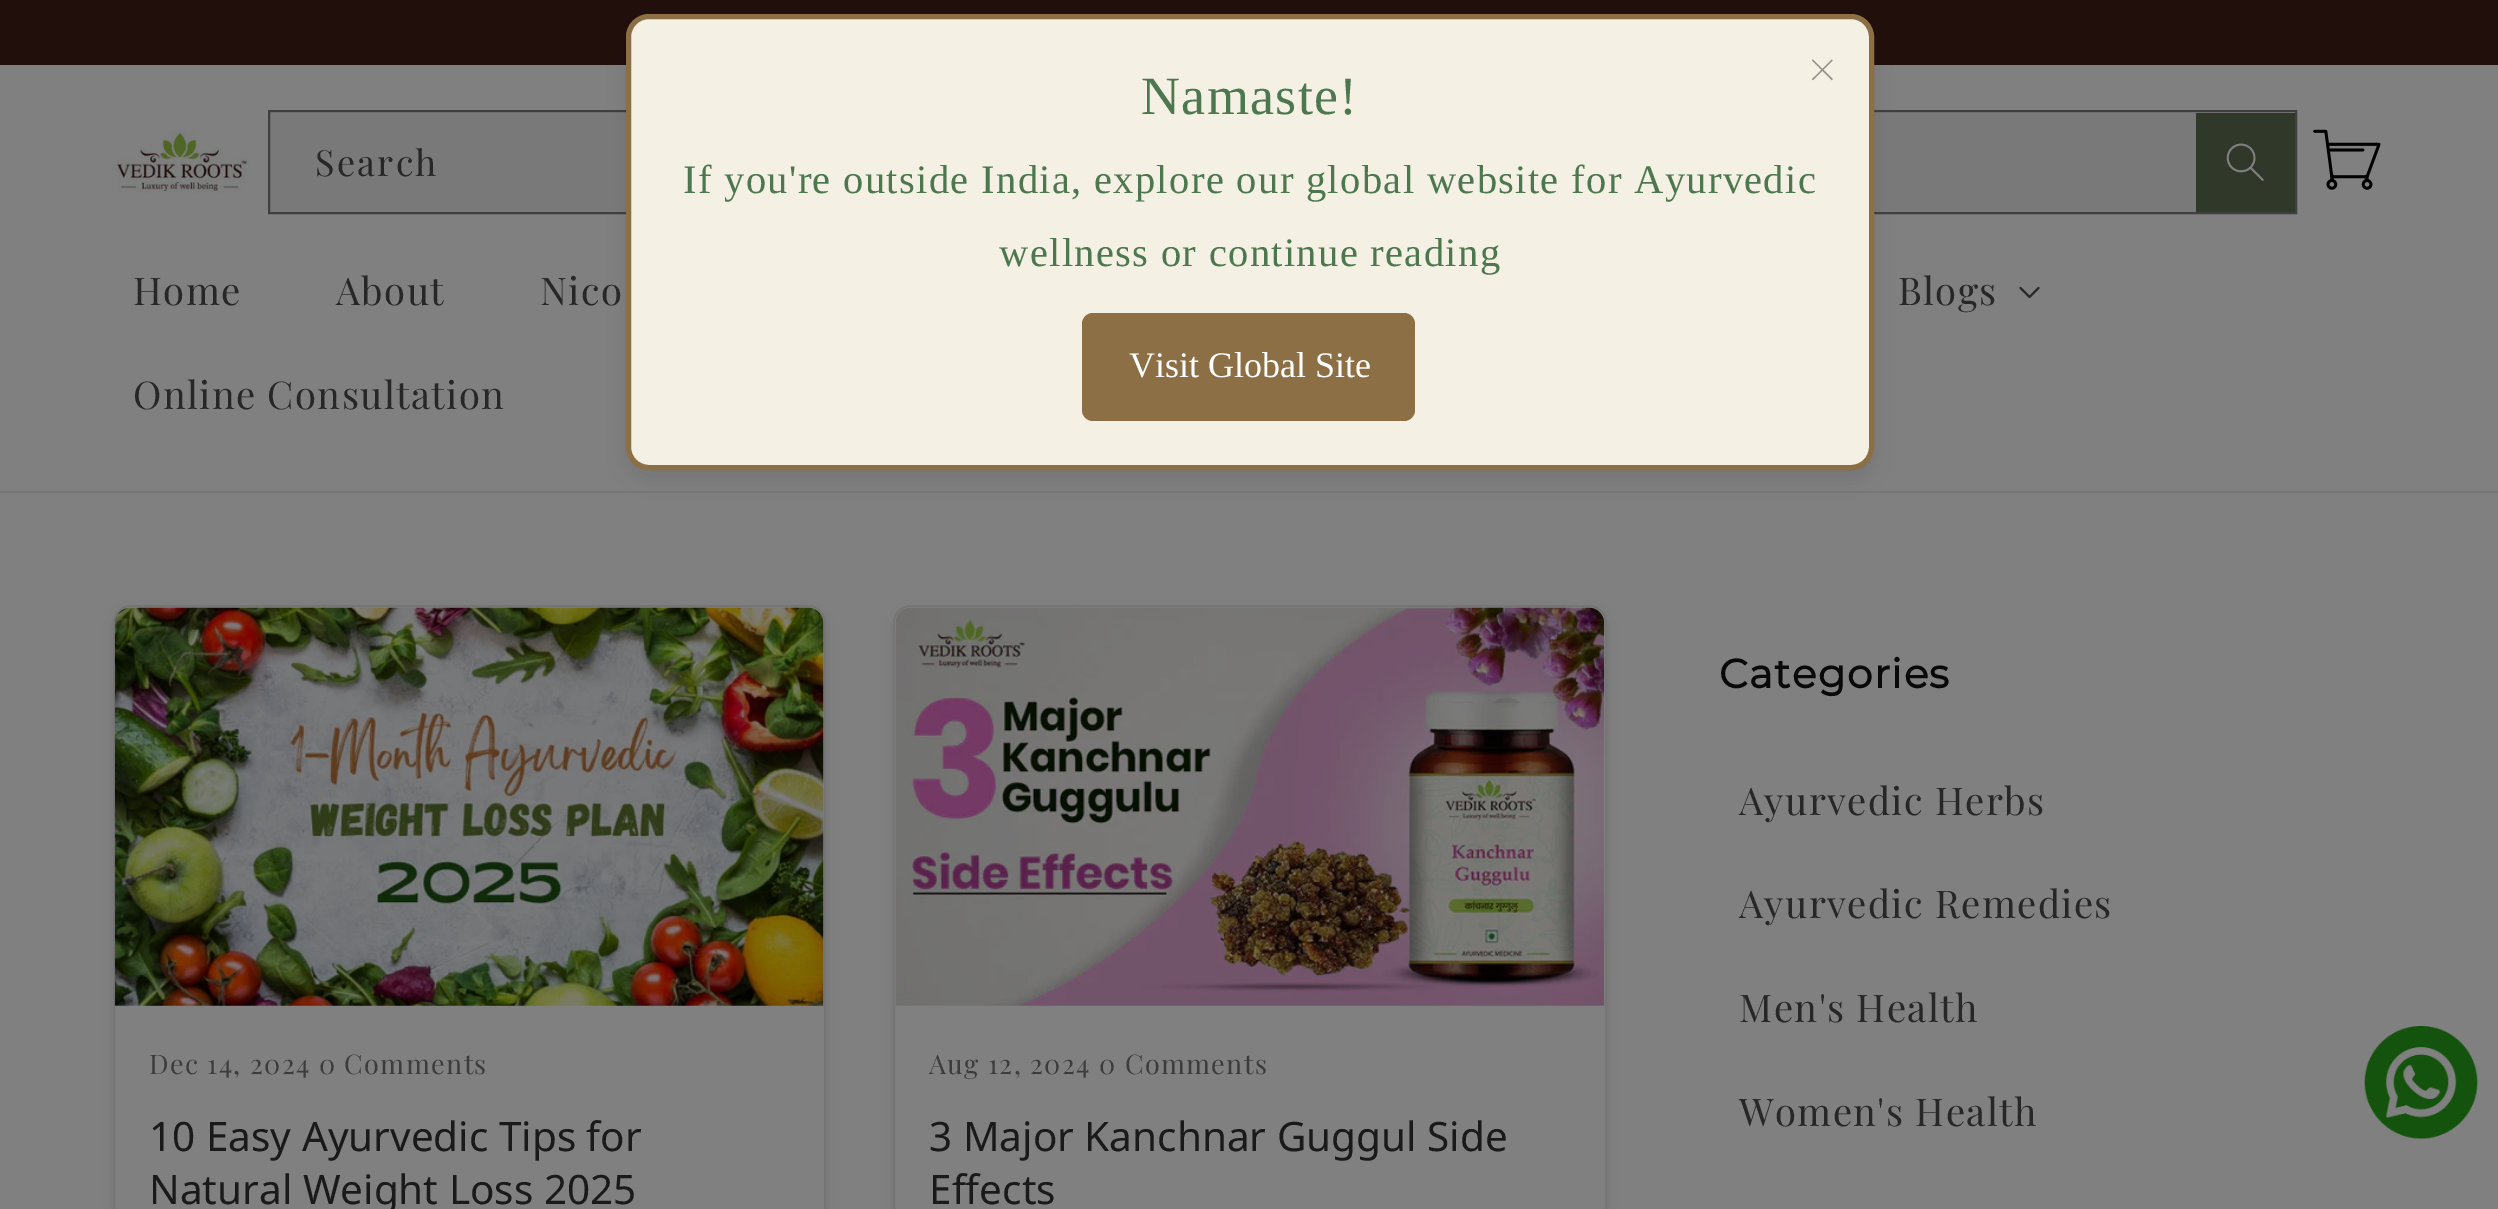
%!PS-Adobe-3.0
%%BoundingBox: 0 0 2498 1209
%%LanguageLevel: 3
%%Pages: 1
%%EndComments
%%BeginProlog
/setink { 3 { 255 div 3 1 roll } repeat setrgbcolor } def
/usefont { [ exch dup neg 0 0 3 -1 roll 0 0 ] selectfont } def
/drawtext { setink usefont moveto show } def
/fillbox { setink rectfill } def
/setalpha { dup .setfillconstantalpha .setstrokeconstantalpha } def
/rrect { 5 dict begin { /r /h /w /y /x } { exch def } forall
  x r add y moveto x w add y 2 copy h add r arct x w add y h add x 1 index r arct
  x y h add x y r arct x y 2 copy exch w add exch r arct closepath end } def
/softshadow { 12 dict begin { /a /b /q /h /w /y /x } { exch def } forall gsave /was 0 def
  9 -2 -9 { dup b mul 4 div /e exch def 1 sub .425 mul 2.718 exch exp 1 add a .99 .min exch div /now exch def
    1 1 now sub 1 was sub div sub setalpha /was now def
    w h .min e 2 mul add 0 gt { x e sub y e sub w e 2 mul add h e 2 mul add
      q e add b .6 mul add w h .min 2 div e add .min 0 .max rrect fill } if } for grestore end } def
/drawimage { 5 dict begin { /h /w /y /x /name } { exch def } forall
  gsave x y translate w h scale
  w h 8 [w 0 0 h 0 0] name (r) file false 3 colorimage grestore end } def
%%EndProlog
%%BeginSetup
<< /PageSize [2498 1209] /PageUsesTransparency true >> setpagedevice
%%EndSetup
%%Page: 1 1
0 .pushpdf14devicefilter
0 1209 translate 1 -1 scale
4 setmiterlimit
0 0 2498 1209 128 128 128 fillbox
0 0 2498 65 33 15 12 fillbox
0 491 2498 2 118 118 118 fillbox
270 113 1926 99 121 121 121 fillbox
2196 113 99 99 48 56 41 fillbox
(assets/img2.rgb) 2226 143 38 38 drawimage
63 63 63 setink
2 setlinewidth
269 111 2027 102 rectstroke
0 0 0 setink
626 23 1248 456 23 9 0.1 softshadow
244 241 228 setink
628.5 16.5 1243 451 20.5 rrect gsave fill grestore
140 111 68 setink
5 setlinewidth
stroke
/PlayfairDisplay-Bold 54 usefont
148 146 140 setink
1809 89 moveto 1.35 0 (×) ashow
/LiberationSerif-Regular 54 usefont
77 119 78 setink
1141 114 moveto 1.35 0 (Namaste!) ashow
/LiberationSerif-Regular 40.5 usefont
683 193 moveto 1.35 0 (If you're outside India, explore our global website for Ayurvedic) ashow
999 266 moveto 1.35 0 (wellness or continue reading) ashow
140 111 68 setink
1082 313 333 108 11 rrect fill
(Visit Global Site) 1129 377 /LiberationSerif-Regular 36 255 255 255 drawtext
(assets/img1.rgb) 112 130 137 63 drawimage
/PlayfairDisplay-Regular 36 usefont
39 39 39 setink
315 176 moveto 2.25 0 (Search) ashow
(assets/img3.rgb) 2313 129 68 61 drawimage
/PlayfairDisplay-Regular 38.25 usefont
133 305 moveto 1.35 0 (Home) ashow
336 305 moveto 1.35 0 (About) ashow
540 305 moveto 1.35 0 (Nico) ashow
1898 305 moveto 1.35 0 (Blogs) ashow
(assets/img4.rgb) 2019 286 21 13 drawimage
133 409 moveto 1.35 0 (Online Consultation) ashow
0 0 0 setink
113 610 713 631 18 4.5 0.1 softshadow
128 128 128 setink
114 606 711 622 17 rrect gsave fill grestore
117 117 117 setink
2 setlinewidth
stroke
(assets/img5.rgb) 114 607 710 399 drawimage
/PlayfairDisplay-Regular 27 usefont
60 60 60 setink
149 1074 moveto 1.35 0 (Dec 14, 2024 0 Comments) ashow
(10 Easy Ayurvedic Tips for) 149 1151 /NotoSans-Regular 40.5 26 26 26 drawtext
(Natural Weight Loss 2025) 149 1204 /NotoSans-Regular 40.5 26 26 26 drawtext
0 0 0 setink
893 610 714 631 18 4.5 0.1 softshadow
128 128 128 setink
894 606 712 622 17 rrect gsave fill grestore
117 117 117 setink
stroke
(assets/img6.rgb) 895 607 710 399 drawimage
/PlayfairDisplay-Regular 27 usefont
60 60 60 setink
929 1074 moveto 1.35 0 (Aug 12, 2024 0 Comments) ashow
(3 Major Kanchnar Guggul Side) 929 1151 /NotoSans-Regular 40.5 26 26 26 drawtext
(Effects) 929 1204 /NotoSans-Regular 40.5 26 26 26 drawtext
/Montserrat-Bold 40.5 usefont
9 9 9 setink
1719 688 moveto 1.35 0 (Categories) ashow
/PlayfairDisplay-Regular 38.25 usefont
39 39 39 setink
1739 815 moveto 1.35 0 (Ayurvedic Herbs) ashow
1739 918 moveto 1.35 0 (Ayurvedic Remedies) ashow
1739 1022 moveto 1.35 0 (Men's Health) ashow
1739 1126 moveto 1.35 0 (Women's Health) ashow
(assets/img7.rgb) 2364 1026 114 113 drawimage
.poppdf14devicefilter showpage
%%EOF
